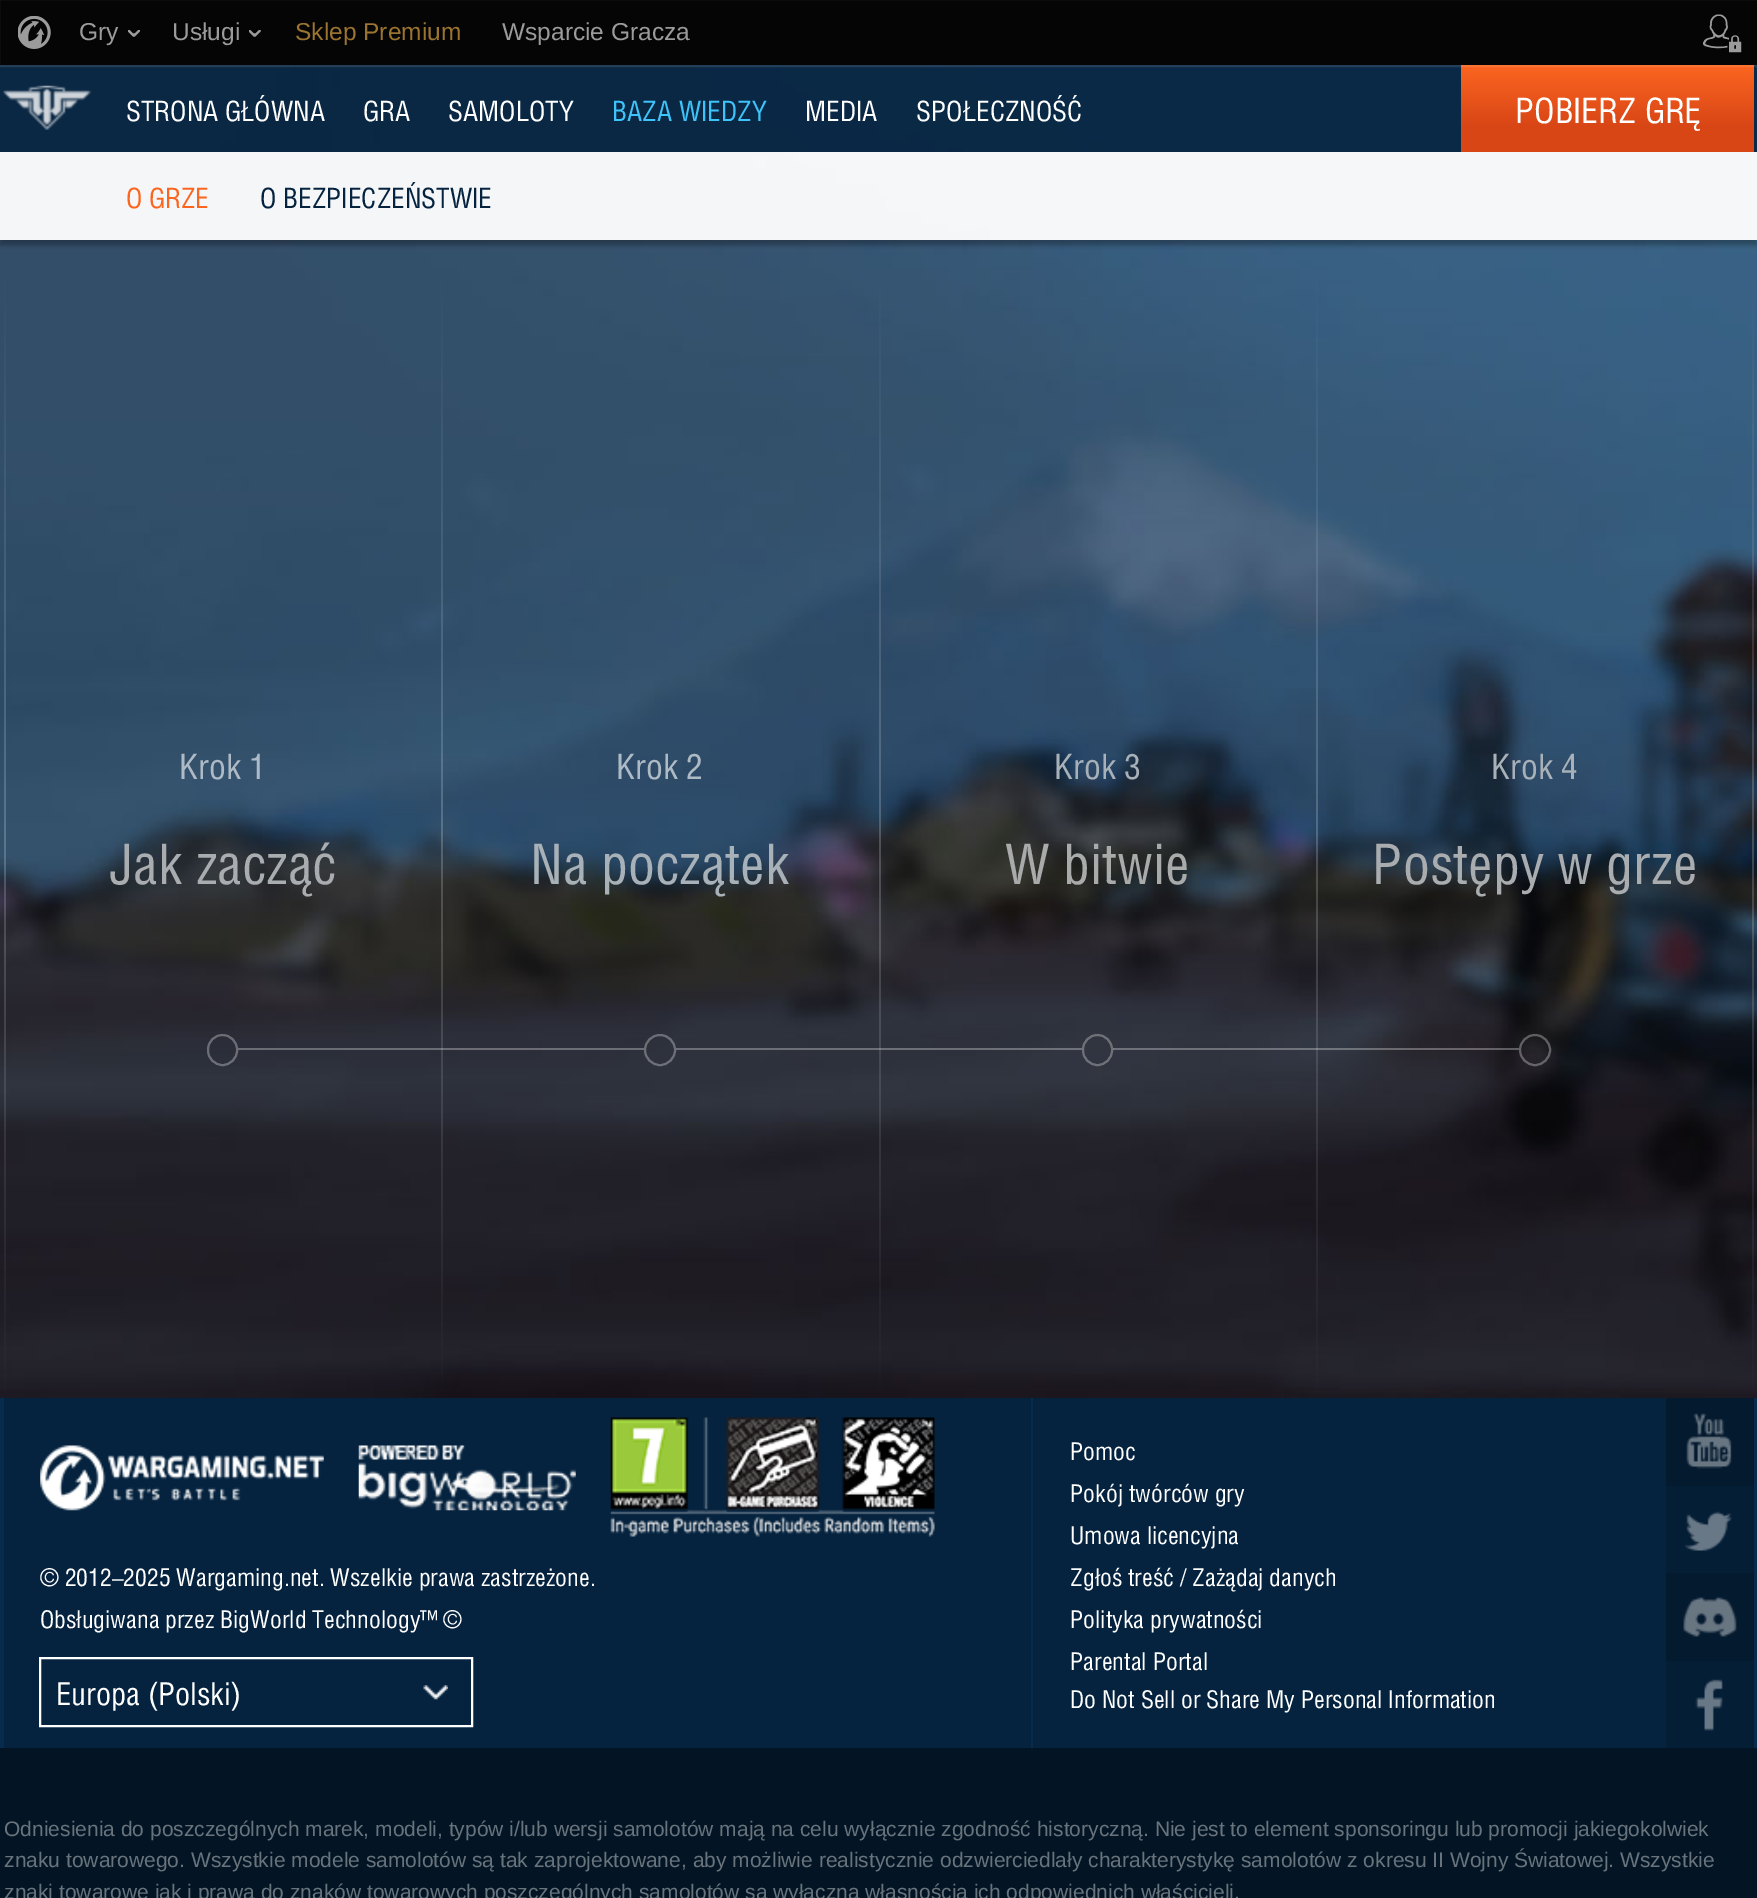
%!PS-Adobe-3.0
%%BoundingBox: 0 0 1757 1898
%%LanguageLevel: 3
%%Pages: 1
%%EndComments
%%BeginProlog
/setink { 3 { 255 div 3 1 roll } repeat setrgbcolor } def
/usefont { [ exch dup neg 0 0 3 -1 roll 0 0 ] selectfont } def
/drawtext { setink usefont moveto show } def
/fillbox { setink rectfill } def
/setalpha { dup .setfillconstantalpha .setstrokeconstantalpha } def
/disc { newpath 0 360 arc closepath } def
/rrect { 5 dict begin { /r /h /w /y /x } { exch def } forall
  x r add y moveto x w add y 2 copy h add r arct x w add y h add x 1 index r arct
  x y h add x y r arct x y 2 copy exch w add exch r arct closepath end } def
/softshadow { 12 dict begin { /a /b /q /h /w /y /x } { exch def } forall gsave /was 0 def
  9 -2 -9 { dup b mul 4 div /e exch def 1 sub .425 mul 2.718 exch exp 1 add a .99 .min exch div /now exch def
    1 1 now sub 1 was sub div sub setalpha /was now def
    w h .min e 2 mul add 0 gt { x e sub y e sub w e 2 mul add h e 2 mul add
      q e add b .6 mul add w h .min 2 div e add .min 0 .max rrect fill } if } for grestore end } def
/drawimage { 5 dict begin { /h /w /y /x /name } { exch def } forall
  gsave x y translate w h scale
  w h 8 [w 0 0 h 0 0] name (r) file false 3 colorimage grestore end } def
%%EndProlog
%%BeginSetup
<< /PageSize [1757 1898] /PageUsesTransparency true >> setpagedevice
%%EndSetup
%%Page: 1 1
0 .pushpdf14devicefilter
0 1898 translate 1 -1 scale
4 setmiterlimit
0 0 1757 1898 255 255 255 fillbox
0 0 1757 65 5 5 5 fillbox
(assets/img6.rgb) 0 65 1757 1333 drawimage
0.9 setalpha
0 65 1757 87 5 35 63 fillbox
gsave
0 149 moveto 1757 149 lineto 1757 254 lineto 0 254 lineto closepath 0 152 moveto 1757 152 lineto 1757 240 lineto 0 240 lineto closepath eoclip newpath
1 setalpha
0 0 0 setink
0 158 1757 87 0 2.5 0.3 softshadow
grestore
1 setalpha
gsave 1461 65 moveto 1754 65 lineto 1754 152 lineto 1461 152 lineto closepath clip newpath
<< /ShadingType 2 /ColorSpace /DeviceRGB /Coords [1607 65 1607 152] /Extend [true true] /Function << /FunctionType 3 /Domain [0 1] /Functions [<< /FunctionType 2 /Domain [0 1] /C0 [0.988 0.396 0.125] /C1 [0.851 0.275 0.086] /N 1 >> << /FunctionType 2 /Domain [0 1] /C0 [0.851 0.275 0.086] /C1 [0.851 0.275 0.086] /N 1 >>] /Bounds [0.7] /Encode [0 1 0 1] >> >> shfill grestore
0.1 setalpha
255 255 255 setink
2 setlinewidth
-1 -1 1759 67 rectstroke
1 setalpha
(assets/img1.rgb) 18 16 33 33 drawimage
(Gry) 79 40 /LiberationSans-Regular 24.5 155 155 155 drawtext
(assets/img2.rgb) 128 30 12 7 drawimage
(Usługi) 172 40 /LiberationSans-Regular 24.5 155 155 155 drawtext
(assets/img3.rgb) 249 30 12 7 drawimage
(Sklep Premium) 295 40 /LiberationSans-Regular 24.5 155 116 48 drawtext
(Wsparcie Gracza) 502 40 /LiberationSans-Regular 24.5 155 155 155 drawtext
(assets/img4.rgb) 1703 14 39 39 drawimage
(assets/img5.rgb) 3 85 89 45 drawimage
(STRONA GŁÓWNA) 126 121 /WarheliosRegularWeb-Regular 28 255 255 255 drawtext
(GRA) 363 121 /WarheliosRegularWeb-Regular 28 255 255 255 drawtext
(SAMOLOTY) 448 121 /WarheliosRegularWeb-Regular 28 255 255 255 drawtext
(BAZA WIEDZY) 612 121 /WarheliosRegularWeb-Regular 28 62 196 250 drawtext
(MEDIA) 805 121 /WarheliosRegularWeb-Regular 28 255 255 255 drawtext
(SPOŁECZNOŚĆ) 916 121 /WarheliosRegularWeb-Regular 28 255 255 255 drawtext
(POBIERZ GRĘ) 1515 123 /WarheliosRegularWeb-Regular 35 255 255 255 drawtext
0.95 setalpha
0 152 1757 88 255 255 255 fillbox
1 setalpha
(O GRZE) 126 208 /WarheliosRegularWeb-Regular 28 252 101 32 drawtext
(O BEZPIECZEŃSTWIE) 260 208 /WarheliosRegularWeb-Regular 28 5 35 63 drawtext
(Krok 1) 179 779 /WarheliosRegularWeb-Regular 35 174 186 197 drawtext
(Jak zacząć) 109 884 /WarheliosRegularWeb-Regular 56 170 173 176 drawtext
0.3 setalpha
255 255 255 setink
208 1035 29 30 14.5 rrect stroke
1 setalpha
238 1048 203 2 107 109 117 fillbox
(Krok 2) 616 779 /WarheliosRegularWeb-Regular 35 174 186 197 drawtext
(Na początek) 530 884 /WarheliosRegularWeb-Regular 56 168 177 184 drawtext
0.3 setalpha
255 255 255 setink
660 1050 15 disc stroke
441 1048 203 2 255 255 255 fillbox
1 setalpha
676 1048 203 2 108 111 119 fillbox
(Krok 3) 1054 779 /WarheliosRegularWeb-Regular 35 168 177 184 drawtext
(W bitwie) 1005 884 /WarheliosRegularWeb-Regular 56 169 170 170 drawtext
111 113 121 setink
1083 1035 29 30 14.5 rrect stroke
0.3 setalpha
879 1048 203 2 255 255 255 fillbox
1113 1048 203 2 255 255 255 fillbox
1 setalpha
(Krok 4) 1491 779 /WarheliosRegularWeb-Regular 35 168 177 184 drawtext
(Postępy w grze) 1372 884 /WarheliosRegularWeb-Regular 56 170 173 176 drawtext
0.3 setalpha
255 255 255 setink
1535 1050 15 disc stroke
1316 1048 203 2 255 255 255 fillbox
1 setalpha
0 1748 1757 150 3 21 36 fillbox
0 1398 1757 350 6 43 77 fillbox
4 1398 1027 350 5 35 63 fillbox
(assets/img7.rgb) 40 1445 284 66 drawimage
(assets/img8.rgb) 358 1445 218 66 drawimage
(assets/img9.rgb) 610 1417 325 120 drawimage
(© 2012–2025 Wargaming.net. Wszelkie prawa zastrzeżone.) 40 1586 /WarheliosRegularWeb-Regular 24.5 255 255 255 drawtext
(Obsługiwana przez BigWorld Technology™ ©) 40 1628 /WarheliosRegularWeb-Regular 24.5 255 255 255 drawtext
40 1658 432 68 rectstroke
(Europa \(Polski\)) 56 1705 /WarheliosRegularWeb-Regular 31.5 255 255 255 drawtext
(assets/img10.rgb) 423 1685 25 15 drawimage
1033 1398 633 350 5 35 63 fillbox
(Pomoc) 1070 1460 /WarheliosRegularWeb-Regular 24.5 255 255 255 drawtext
(Pokój twórców gry) 1070 1502 /WarheliosRegularWeb-Regular 24.5 255 255 255 drawtext
(Umowa licencyjna) 1070 1544 /WarheliosRegularWeb-Regular 24.5 255 255 255 drawtext
(Zgłoś treść / Zażądaj danych) 1070 1586 /WarheliosRegularWeb-Regular 24.5 255 255 255 drawtext
(Polityka prywatności) 1070 1628 /WarheliosRegularWeb-Regular 24.5 255 255 255 drawtext
(Parental Portal) 1070 1670 /WarheliosRegularWeb-Regular 24.5 255 255 255 drawtext
(Do Not Sell or Share My Personal Information) 1070 1708 /WarheliosRegularWeb-Regular 24.5 255 255 255 drawtext
1666 1398 88 88 4 26 47 fillbox
(assets/img11.rgb) 1686 1413 46 56 drawimage
1666 1486 88 87 4 30 54 fillbox
(assets/img12.rgb) 1685 1511 47 40 drawimage
1666 1573 88 88 4 26 47 fillbox
(assets/img13.rgb) 1683 1597 54 40 drawimage
1666 1661 88 87 4 30 54 fillbox
(assets/img14.rgb) 1695 1679 28 52 drawimage
(Odniesienia do poszczególnych marek, modeli, typów i/lub wersji samolotów mają na celu wyłącznie zgodność historyczną. Nie jest to element sponsoringu lub promocji jakiegokolwiek) 4 1836 /LiberationSans-Regular 21 104 115 124 drawtext
(znaku towarowego. Wszystkie modele samolotów są tak zaprojektowane, aby możliwie realistycznie odzwierciedlały charakterystykę samolotów z okresu II Wojny Światowej. Wszystkie) 4 1867 /LiberationSans-Regular 21 104 115 124 drawtext
(znaki towarowe jak i prawa do znaków towarowych poszczególnych samolotów są wyłączną własnością ich odpowiednich właścicieli.) 4 1899 /LiberationSans-Regular 21 104 115 124 drawtext
.poppdf14devicefilter showpage
%%EOF
